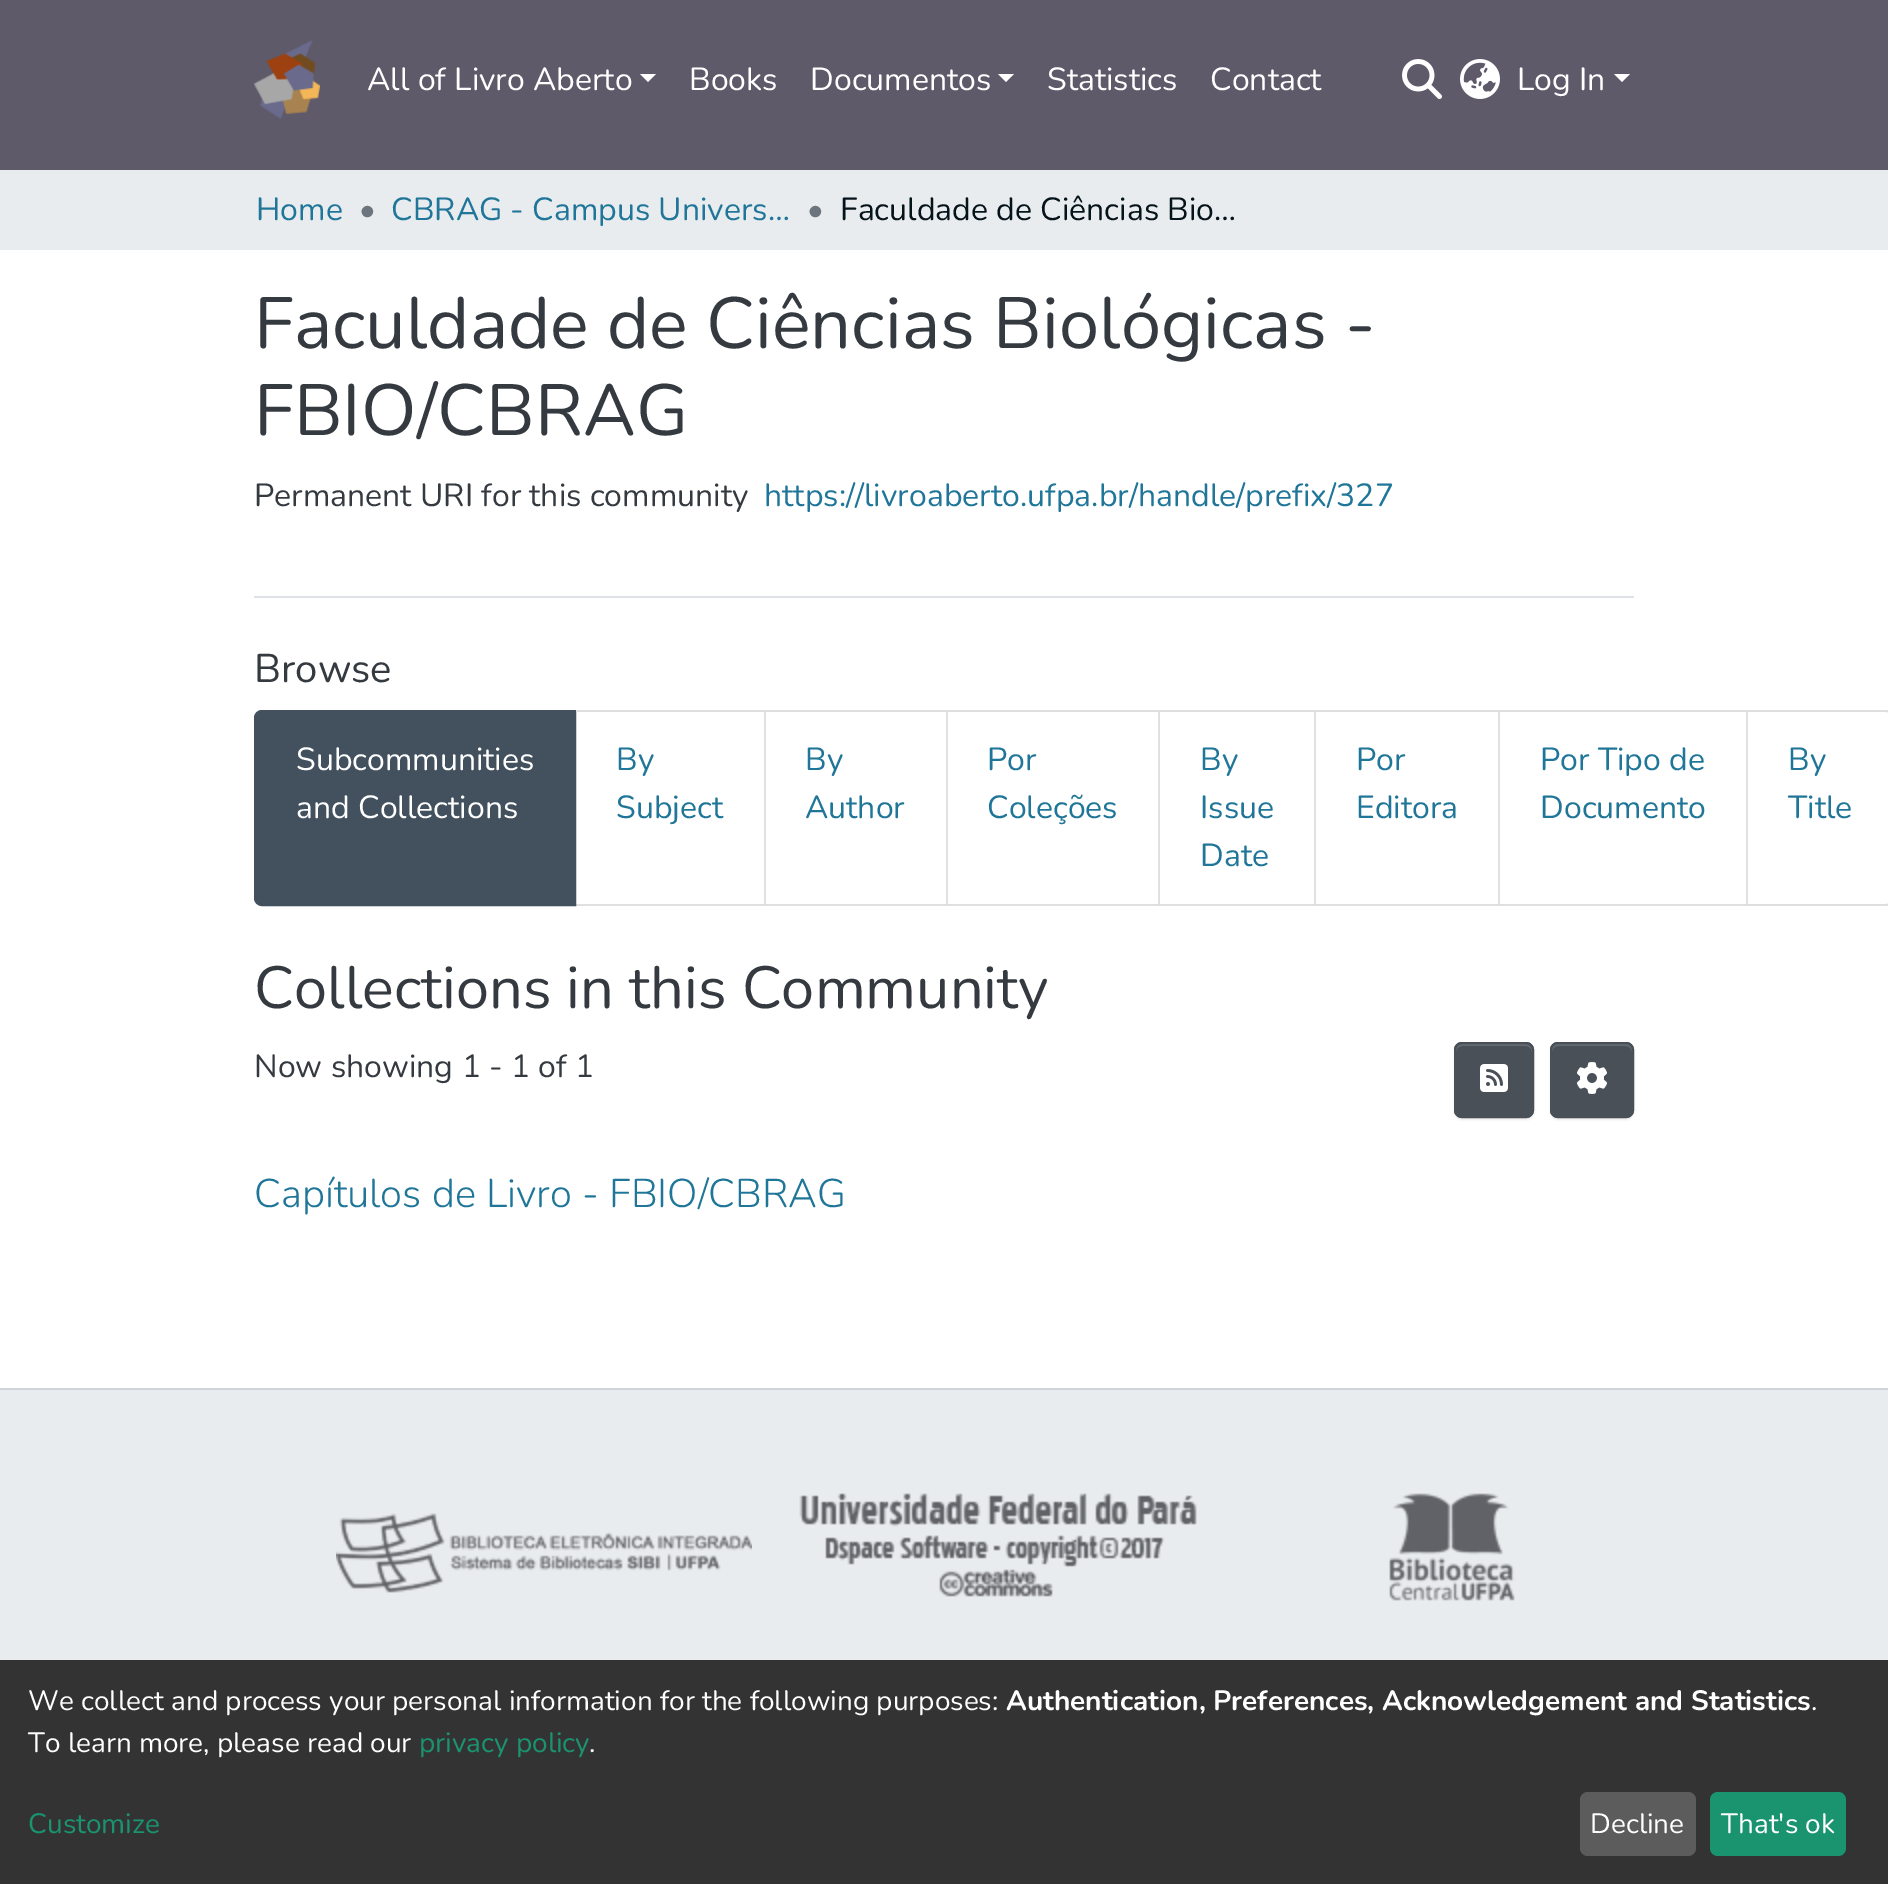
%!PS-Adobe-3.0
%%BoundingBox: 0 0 1888 1884
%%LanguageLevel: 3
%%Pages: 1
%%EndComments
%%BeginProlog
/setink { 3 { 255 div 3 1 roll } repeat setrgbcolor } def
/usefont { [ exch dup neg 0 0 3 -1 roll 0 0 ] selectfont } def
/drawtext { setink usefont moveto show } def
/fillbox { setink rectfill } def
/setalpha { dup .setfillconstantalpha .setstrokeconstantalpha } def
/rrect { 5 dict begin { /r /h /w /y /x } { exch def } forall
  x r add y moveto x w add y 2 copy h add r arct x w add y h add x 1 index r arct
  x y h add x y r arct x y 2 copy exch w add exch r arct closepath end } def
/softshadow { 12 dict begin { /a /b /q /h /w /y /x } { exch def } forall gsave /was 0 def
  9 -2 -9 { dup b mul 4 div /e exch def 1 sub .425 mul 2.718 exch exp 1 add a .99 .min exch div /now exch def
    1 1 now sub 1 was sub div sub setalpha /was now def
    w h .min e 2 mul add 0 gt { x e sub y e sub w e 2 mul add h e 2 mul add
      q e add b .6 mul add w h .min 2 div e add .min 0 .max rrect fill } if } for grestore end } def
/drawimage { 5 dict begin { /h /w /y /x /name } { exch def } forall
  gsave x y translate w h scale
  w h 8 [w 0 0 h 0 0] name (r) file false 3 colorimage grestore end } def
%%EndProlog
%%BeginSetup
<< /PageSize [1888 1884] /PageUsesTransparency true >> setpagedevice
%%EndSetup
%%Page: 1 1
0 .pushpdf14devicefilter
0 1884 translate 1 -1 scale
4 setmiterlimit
0 0 1888 1884 255 255 255 fillbox
0 0 1888 170 94 90 105 fillbox
(assets/img1.rgb) 254 40 66 79 drawimage
(All of Livro Aberto) 367 90 /Nunito-Regular 32 255 255 255 drawtext
640 74 moveto 656 74 lineto 648 82 lineto closepath fill
(Books) 689 90 /Nunito-Regular 32 255 255 255 drawtext
(Documentos) 810 90 /Nunito-Regular 32 255 255 255 drawtext
998 74 moveto 1014 74 lineto 1006 82 lineto closepath fill
(Statistics) 1047 90 /Nunito-Regular 32 255 255 255 drawtext
(Contact) 1210 90 /Nunito-Regular 32 255 255 255 drawtext
(assets/img2.rgb) 1402 59 40 40 drawimage
(assets/img3.rgb) 1460 59 40 40 drawimage
(Log In) 1517 90 /Nunito-Regular 32 255 255 255 drawtext
1614 74 moveto 1630 74 lineto 1622 82 lineto closepath fill
0 170 1888 80 233 236 239 fillbox
(Home) 256 220 /Nunito-Regular 32 32 118 152 drawtext
(•) 359 220 /Nunito-Regular 32 108 117 125 drawtext
(CBRAG - Campus Univers…) 391 220 /Nunito-Regular 32 32 118 152 drawtext
(•) 807 220 /Nunito-Regular 32 108 117 125 drawtext
(Faculdade de Ciências Bio…) 840 220 /Nunito-Regular 32 5 20 26 drawtext
254 596 1380 2 222 226 230 fillbox
(Faculdade de Ciências Biológicas -) 254 348 /Nunito-Regular 72.3 52 58 64 drawtext
(FBIO/CBRAG) 254 435 /Nunito-Regular 72.3 52 58 64 drawtext
(Permanent URI for this community) 254 506 /Nunito-Regular 32 52 58 64 drawtext
(https://livroaberto.ufpa.br/handle/prefix/327) 764 506 /Nunito-Regular 32 32 118 152 drawtext
(Browse) 254 682 /Nunito-Regular 40 52 58 64 drawtext
67 81 95 setink
262 711 moveto 575 711 lineto 575 905 lineto 262 905 lineto 258 905 255 902 255 898 curveto 255 718 lineto 255 714 258 711 262 711 curveto closepath gsave fill grestore
2 setlinewidth
stroke
(Subcommunities) 296 770 /Nunito-Regular 32 255 255 255 drawtext
(and Collections) 296 818 /Nunito-Regular 32 255 255 255 drawtext
223 223 223 setink
576 710 moveto 766 710 lineto 764 712 lineto 576 712 lineto closepath fill
0.12 setalpha
0 0 0 setink
766 710 moveto 766 906 lineto 764 904 lineto 764 712 lineto closepath fill
766 906 moveto 576 906 lineto 576 904 lineto 764 904 lineto closepath fill
1 setalpha
(By) 616 770 /Nunito-Regular 32 32 118 152 drawtext
(Subject) 616 818 /Nunito-Regular 32 32 118 152 drawtext
223 223 223 setink
766 710 moveto 948 710 lineto 946 712 lineto 766 712 lineto closepath fill
0.12 setalpha
0 0 0 setink
948 710 moveto 948 906 lineto 946 904 lineto 946 712 lineto closepath fill
948 906 moveto 766 906 lineto 766 904 lineto 946 904 lineto closepath fill
1 setalpha
(By) 805 770 /Nunito-Regular 32 32 118 152 drawtext
(Author) 805 818 /Nunito-Regular 32 32 118 152 drawtext
223 223 223 setink
948 710 moveto 1160 710 lineto 1158 712 lineto 948 712 lineto closepath fill
0.12 setalpha
0 0 0 setink
1160 710 moveto 1160 906 lineto 1158 904 lineto 1158 712 lineto closepath fill
1160 906 moveto 948 906 lineto 948 904 lineto 1158 904 lineto closepath fill
1 setalpha
(Por) 987 770 /Nunito-Regular 32 32 118 152 drawtext
(Coleções) 987 818 /Nunito-Regular 32 32 118 152 drawtext
223 223 223 setink
1160 710 moveto 1316 710 lineto 1314 712 lineto 1160 712 lineto closepath fill
0.12 setalpha
0 0 0 setink
1316 710 moveto 1316 906 lineto 1314 904 lineto 1314 712 lineto closepath fill
1316 906 moveto 1160 906 lineto 1160 904 lineto 1314 904 lineto closepath fill
1 setalpha
(By) 1200 770 /Nunito-Regular 32 32 118 152 drawtext
(Issue) 1200 818 /Nunito-Regular 32 32 118 152 drawtext
(Date) 1200 866 /Nunito-Regular 32 32 118 152 drawtext
223 223 223 setink
1316 710 moveto 1500 710 lineto 1498 712 lineto 1316 712 lineto closepath fill
0.12 setalpha
0 0 0 setink
1500 710 moveto 1500 906 lineto 1498 904 lineto 1498 712 lineto closepath fill
1500 906 moveto 1316 906 lineto 1316 904 lineto 1498 904 lineto closepath fill
1 setalpha
(Por) 1356 770 /Nunito-Regular 32 32 118 152 drawtext
(Editora) 1356 818 /Nunito-Regular 32 32 118 152 drawtext
223 223 223 setink
1500 710 moveto 1748 710 lineto 1746 712 lineto 1500 712 lineto closepath fill
0.12 setalpha
0 0 0 setink
1748 710 moveto 1748 906 lineto 1746 904 lineto 1746 712 lineto closepath fill
1748 906 moveto 1500 906 lineto 1500 904 lineto 1746 904 lineto closepath fill
1 setalpha
(Por Tipo de) 1540 770 /Nunito-Regular 32 32 118 152 drawtext
(Documento) 1540 818 /Nunito-Regular 32 32 118 152 drawtext
223 223 223 setink
1748 710 moveto 1886 710 lineto 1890 710 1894 714 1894 718 curveto 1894 898 lineto 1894 902 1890 906 1886 906 curveto 1748 906 lineto closepath 1748 712 moveto 1886 712 lineto 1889 712 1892 715 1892 718 curveto 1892 898 lineto 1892 901 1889 904 1886 904 curveto 1748 904 lineto closepath eofill
(By) 1788 770 /Nunito-Regular 32 32 118 152 drawtext
(Title) 1788 818 /Nunito-Regular 32 32 118 152 drawtext
(Collections in this Community) 254 1008 /Nunito-Regular 59.4 52 58 64 drawtext
(Now showing 1 - 1 of 1) 254 1077 /Nunito-Regular 32 52 58 64 drawtext
0 0 0 setink
1454 1044 80 76 8 1 0.07 softshadow
73 80 87 setink
1454 1042 80 76 8 rrect fill
100 106 112 setink
1462 1046 moveto 1526 1046 lineto 1529 1046 1532 1049 1532 1052 curveto 1532 1042 1524 1044 1515 1044 curveto 1473 1044 lineto 1464 1044 1456 1042 1456 1052 curveto 1456 1049 1459 1046 1462 1046 curveto closepath fill
73 80 87 setink
1455 1043 78 74 7 rrect stroke
(assets/img4.rgb) 1480 1064 28 28 drawimage
0 0 0 setink
1550 1044 84 76 8 1 0.07 softshadow
73 80 87 setink
1550 1042 84 76 8 rrect fill
100 106 112 setink
1558 1046 moveto 1626 1046 lineto 1629 1046 1632 1049 1632 1052 curveto 1632 1041 1623 1044 1615 1044 curveto 1569 1044 lineto 1561 1044 1552 1041 1552 1052 curveto 1552 1049 1555 1046 1558 1046 curveto closepath fill
73 80 87 setink
1551 1043 82 74 7 rrect stroke
(assets/img5.rgb) 1577 1062 30 32 drawimage
(Capítulos de Livro - FBIO/CBRAG) 254 1207 /Nunito-Light 40 32 118 152 drawtext
0 1388 1888 2 206 212 218 fillbox
0 1390 1888 270 233 236 239 fillbox
(assets/img6.rgb) 336 1513 416 80 drawimage
(assets/img7.rgb) 799 1493 716 108 drawimage
0 1660 1888 224 51 51 51 fillbox
(We collect and process your personal information for the following purposes:) 28 1710 /Nunito-Regular 28 255 255 255 drawtext
(Authentication, Preferences, Acknowledgement and Statistics) 1006 1710 /Nunito-Bold 28 255 255 255 drawtext
(.) 1811 1710 /Nunito-Regular 28 255 255 255 drawtext
(To learn more, please read our) 28 1752 /Nunito-Regular 28 255 255 255 drawtext
(privacy policy) 419 1752 /Nunito-Regular 28 26 147 111 drawtext
(.) 589 1752 /Nunito-Regular 28 255 255 255 drawtext
(Customize) 28 1833 /Nunito-Regular 28 26 147 111 drawtext
92 92 92 setink
1580 1792 116 64 8 rrect fill
(Decline) 1590 1833 /Nunito-Regular 28 255 255 255 drawtext
26 147 111 setink
1710 1792 136 64 8 rrect fill
(That's ok) 1721 1833 /Nunito-Regular 28 255 255 255 drawtext
.poppdf14devicefilter showpage
%%EOF
